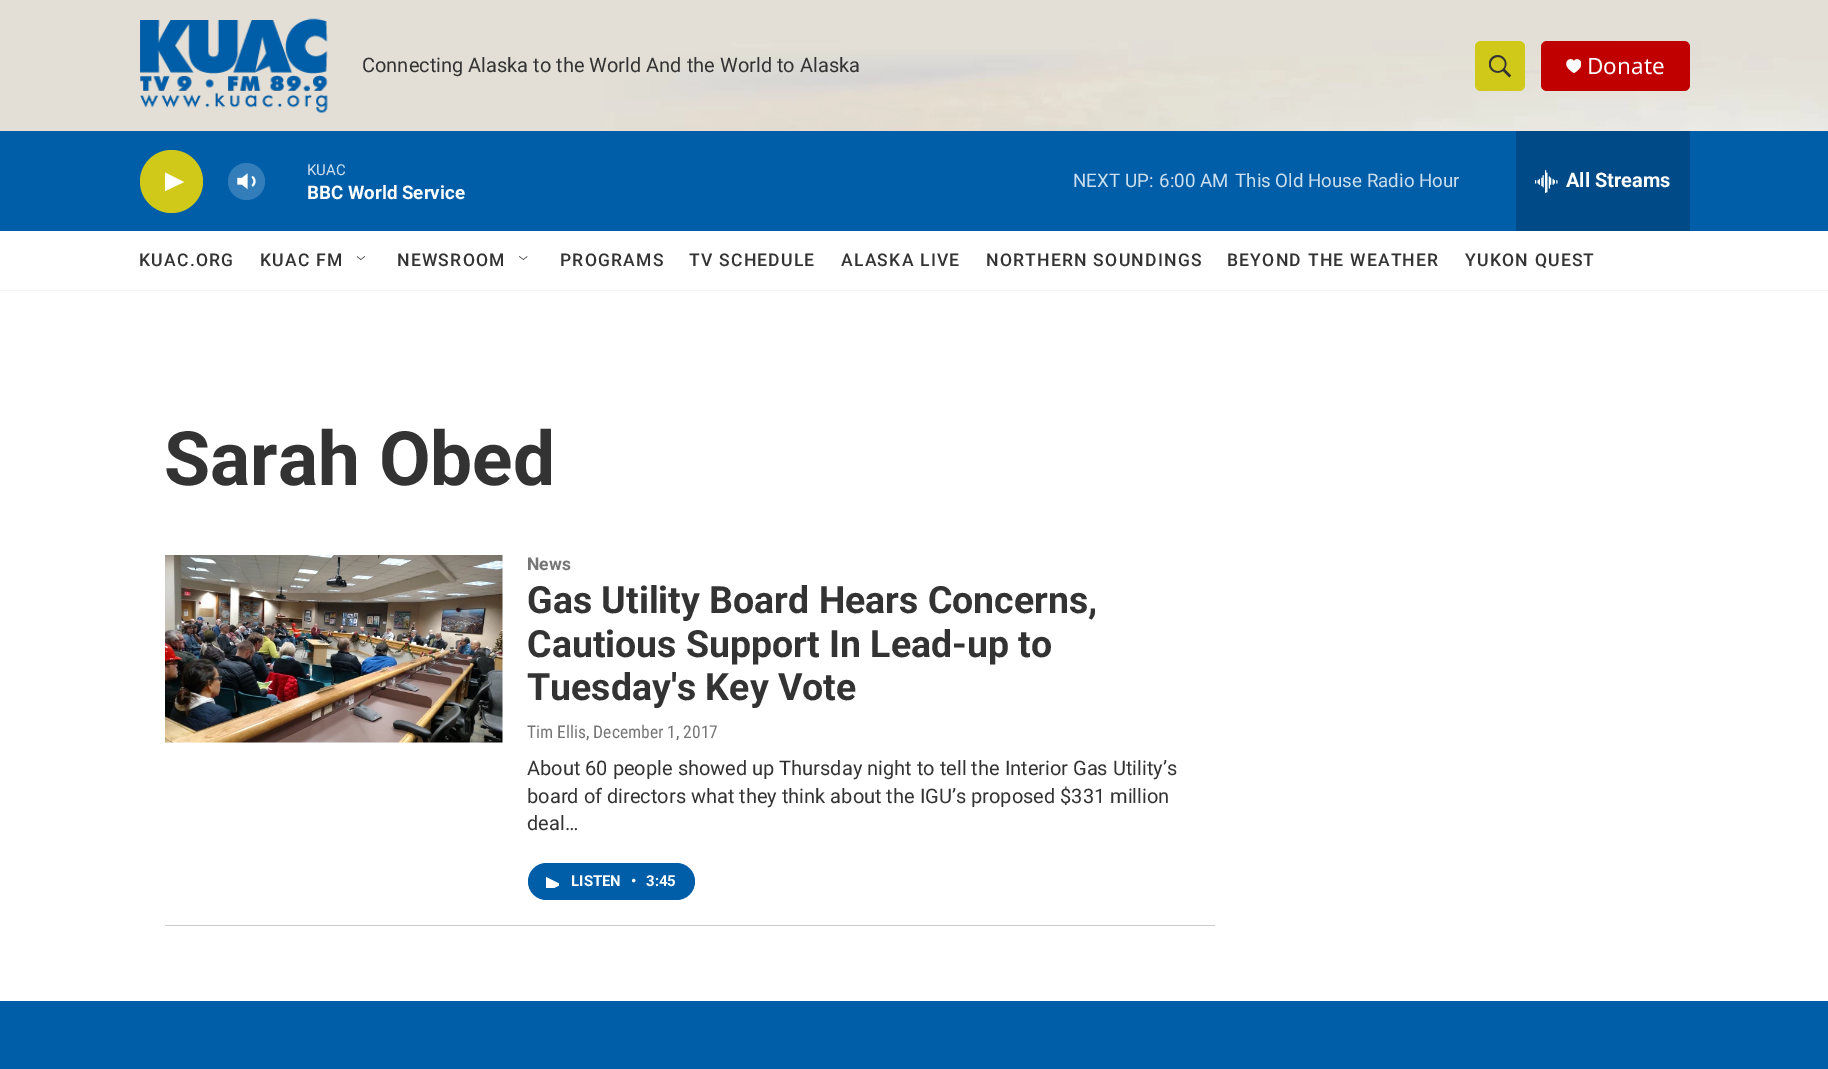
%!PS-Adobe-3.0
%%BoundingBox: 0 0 1828 1069
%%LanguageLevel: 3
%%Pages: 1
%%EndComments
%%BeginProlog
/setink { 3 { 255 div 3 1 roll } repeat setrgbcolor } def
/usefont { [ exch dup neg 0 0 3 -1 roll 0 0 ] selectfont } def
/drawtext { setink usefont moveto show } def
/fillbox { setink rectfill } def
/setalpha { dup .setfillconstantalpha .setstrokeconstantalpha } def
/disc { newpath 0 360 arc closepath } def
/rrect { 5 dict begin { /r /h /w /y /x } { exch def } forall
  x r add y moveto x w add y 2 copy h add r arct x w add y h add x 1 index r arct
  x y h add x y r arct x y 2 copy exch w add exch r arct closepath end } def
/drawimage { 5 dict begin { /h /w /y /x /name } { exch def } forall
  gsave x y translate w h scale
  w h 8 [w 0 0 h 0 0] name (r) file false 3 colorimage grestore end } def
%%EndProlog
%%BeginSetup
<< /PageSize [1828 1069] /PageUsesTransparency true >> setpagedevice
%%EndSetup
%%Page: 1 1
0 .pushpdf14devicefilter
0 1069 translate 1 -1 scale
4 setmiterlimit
0 0 1828 1069 255 255 255 fillbox
0 290 1828 1 245 245 245 fillbox
(assets/img1.rgb) 0 0 1828 131 drawimage
(assets/img2.rgb) 140 18 188 95 drawimage
(Connecting Alaska to the World And the World to Alaska) 362 72 /Roboto-Regular 20 51 51 51 drawtext
208 201 26 setink
1475 41 50 50 6 rrect fill
(assets/img3.rgb) 1489 55 22 23 drawimage
192 0 0 setink
1541 41 149 50 6 rrect fill
gsave
1566 59 15 15 rectclip
255 255 255 setink
1574 61.5 moveto 1571.5 55 1558 63.5 1574 73 curveto 1589.5 63.5 1576 55 1574 61.5 curveto closepath fill
grestore
(Donate) 1587 74 /NotoSans-Regular 22.5 255 255 255 drawtext
0 131 1828 100 0 94 169 fillbox
208 201 26 setink
171.5 181.5 31.5 disc fill
255 255 255 setink
165 172.5 moveto 184 182 lineto 165 191 lineto closepath fill
(assets/img4.rgb) 237 173 19 17 drawimage
0.2 setalpha
246.5 181.5 18.5 disc fill
1 setalpha
(KUAC) 307 175 /Roboto-Regular 15 204 223 238 drawtext
(BBC World Service) 307 199 /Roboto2-Bold 18.75 255 255 255 drawtext
(NEXT UP:) 1073 187 /Roboto-Regular 18.75 204 223 238 drawtext
(6:00 AM) 1159 187 /Roboto-Regular 18.75 204 223 238 drawtext
(This Old House Radio Hour) 1235 187 /Roboto-Regular 18.75 204 223 238 drawtext
1516 131 174 100 0 75 135 fillbox
(assets/img5.rgb) 1535 170 23 23 drawimage
(All Streams) 1566 187 /Roboto2-Bold 20 255 255 255 drawtext
/Roboto-Medium 17.5 usefont
51 51 51 setink
139 266 moveto 1.25 0 (KUAC.ORG) ashow
260 266 moveto 1.25 0 (KUAC FM) ashow
(assets/img6.rgb) 356 256 9 4 drawimage
397 266 moveto 1.25 0 (NEWSROOM) ashow
(assets/img7.rgb) 519 256 9 4 drawimage
560 266 moveto 1.25 0 (PROGRAMS) ashow
689 266 moveto 1.25 0 (TV SCHEDULE) ashow
841 266 moveto 1.25 0 (ALASKA LIVE) ashow
986 266 moveto 1.25 0 (NORTHERN SOUNDINGS) ashow
1227 266 moveto 1.25 0 (BEYOND THE WEATHER) ashow
1465 266 moveto 1.25 0 (YUKON QUEST) ashow
(Sarah Obed) 164 485 /Roboto-Bold 75 51 51 51 drawtext
165 925 1050 1 204 204 204 fillbox
(assets/img8.rgb) 165 555 338 188 drawimage
(News) 527 570 /Roboto-Bold 17.5 118 118 118 drawtext
(Gas Utility Board Hears Concerns,) 527 613 /Roboto-Bold 37.5 51 51 51 drawtext
(Cautious Support In Lead-up to) 527 657 /Roboto-Bold 37.5 51 51 51 drawtext
(Tuesday's Key Vote) 527 700 /Roboto-Bold 37.5 51 51 51 drawtext
(Tim Ellis, December 1, 2017) 527 738 /RobotoCondensed-Regular 17.5 118 118 118 drawtext
(About 60 people showed up Thursday night to tell the Interior Gas Utility’s) 527 775 /Roboto-Regular 20 51 51 51 drawtext
(board of directors what they think about the IGU’s proposed $331 million) 527 803 /Roboto-Regular 20 51 51 51 drawtext
(deal…) 527 830 /Roboto-Regular 20 51 51 51 drawtext
0 94 169 setink
528 863 167 37 18.5 rrect fill
gsave
546 875 13 13 rectclip
255 255 255 setink
546 877 moveto 561 884.5 lineto 546 892 lineto closepath fill
grestore
(LISTEN) 571 886 /Roboto2-Bold 15 255 255 255 drawtext
(•) 631 886 /Roboto2-Bold 15 255 255 255 drawtext
(3:45) 646 886 /Roboto2-Bold 15 255 255 255 drawtext
0 1001 1828 68 0 94 169 fillbox
.poppdf14devicefilter showpage
%%EOF
